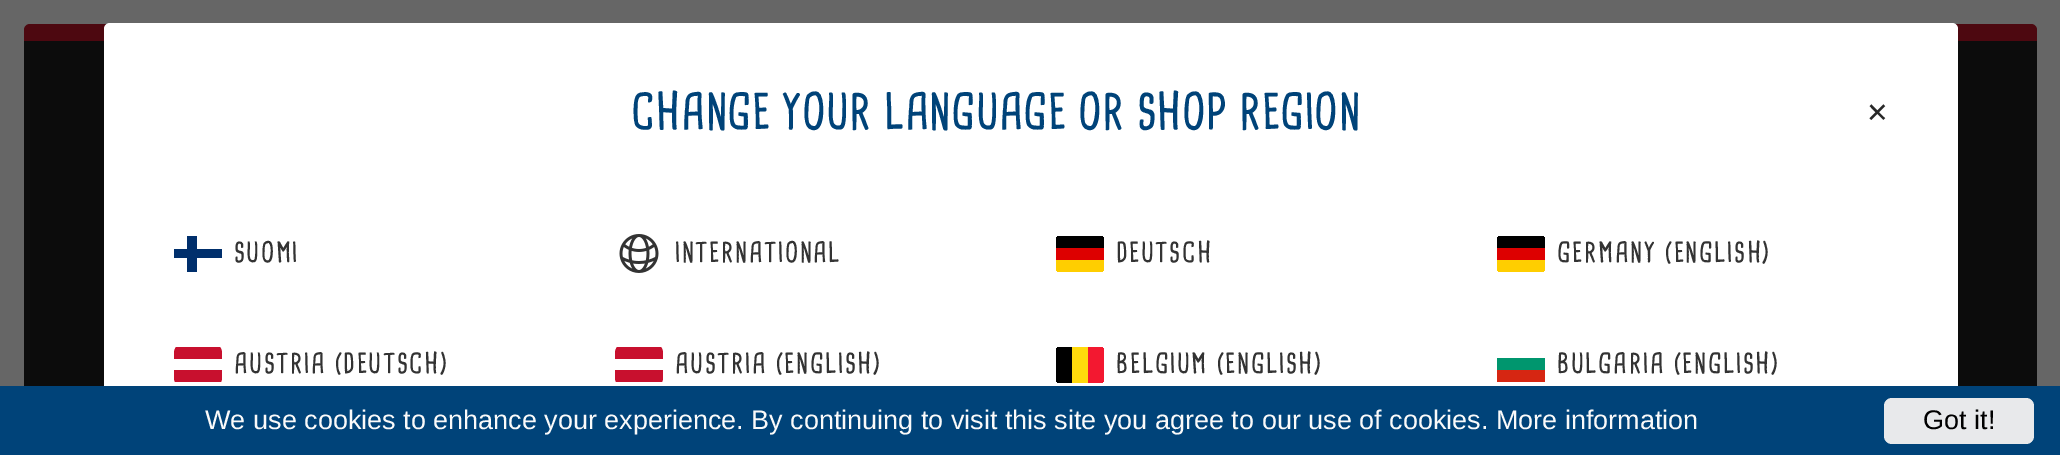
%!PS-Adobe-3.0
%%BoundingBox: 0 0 2060 455
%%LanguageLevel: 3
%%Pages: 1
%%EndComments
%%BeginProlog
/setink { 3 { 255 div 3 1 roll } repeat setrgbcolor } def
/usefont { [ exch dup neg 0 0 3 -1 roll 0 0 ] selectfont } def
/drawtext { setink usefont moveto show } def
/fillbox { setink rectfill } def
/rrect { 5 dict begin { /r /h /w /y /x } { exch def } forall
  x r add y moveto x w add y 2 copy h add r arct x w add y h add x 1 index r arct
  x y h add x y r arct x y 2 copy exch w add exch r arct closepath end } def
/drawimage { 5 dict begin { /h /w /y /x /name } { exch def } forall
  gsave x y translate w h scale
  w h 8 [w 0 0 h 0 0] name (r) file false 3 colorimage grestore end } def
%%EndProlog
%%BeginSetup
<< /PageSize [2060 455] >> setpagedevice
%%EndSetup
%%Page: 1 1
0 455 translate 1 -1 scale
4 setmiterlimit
0 0 2060 455 102 102 102 fillbox
77 8 16 setink
24 24 2013 89 6 rrect fill
24 41 2013 345 12 12 12 fillbox
255 255 255 setink
104 23 1854 411 6 rrect fill
(CHANGE YOUR LANGUAGE OR SHOP REGION) 631 129 /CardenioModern-Bold 48 0 67 121 drawtext
(✕) 1866 122 /DejaVuSans-Regular 27 40 40 40 drawtext
174 249 48 9 0 47 108 fillbox
187 236 10 36 0 47 108 fillbox
/CardenioModern-Bold 27 usefont
51 51 51 setink
234 262 moveto 1.4 0 (SUOMI) ashow
(assets/img1.rgb) 619 234 40 39 drawimage
675 262 moveto 1.4 0 (INTERNATIONAL) ashow
gsave
1056 230 48 48 12 rrect clip newpath
1056 260 48 12 255 206 0 fillbox
1056 236 48 12 0 0 0 fillbox
grestore
1056 248 48 12 221 0 0 fillbox
51 51 51 setink
1116 262 moveto 1.4 0 (DEUTSCH) ashow
gsave
1497 230 48 48 12 rrect clip newpath
1497 260 48 12 255 206 0 fillbox
1497 236 48 12 0 0 0 fillbox
grestore
1497 248 48 12 221 0 0 fillbox
51 51 51 setink
1557 262 moveto 1.4 0 (GERMANY \(ENGLISH\)) ashow
gsave
174 341 48 48 rectclip
200 16 46 setink
222 359 moveto 222 355 223 351 220 347 curveto 176 347 lineto 173 351 174 355 174 359 curveto closepath 222 370 moveto 174 370 lineto 174 374 173 378 175 382 curveto 221 382 lineto 223 378 222 374 222 370 curveto closepath eofill
grestore
234 373 moveto 1.4 0 (AUSTRIA \(DEUTSCH\)) ashow
gsave
615 341 48 48 rectclip
200 16 46 setink
663 359 moveto 663 355 664 351 661 347 curveto 617 347 lineto 614 351 615 355 615 359 curveto closepath 663 370 moveto 615 370 lineto 615 374 614 378 616 382 curveto 662 382 lineto 664 378 663 374 663 370 curveto closepath eofill
grestore
675 373 moveto 1.4 0 (AUSTRIA \(ENGLISH\)) ashow
gsave
1056 341 48 48 12 rrect clip newpath
1056 347 16 36 0 0 0 fillbox
grestore
1072 347 16 36 255 217 12 fillbox
gsave
1056 341 48 48 12 rrect clip newpath
1088 347 16 36 243 24 48 fillbox
grestore
51 51 51 setink
1116 373 moveto 1.4 0 (BELGIUM \(ENGLISH\)) ashow
gsave
1497 341 48 48 12 rrect clip newpath
1497 370 48 12 214 38 18 fillbox
grestore
1497 358 48 12 0 150 110 fillbox
51 51 51 setink
1557 373 moveto 1.4 0 (BULGARIA \(ENGLISH\)) ashow
0 386 2060 69 0 67 121 fillbox
(We use cookies to enhance your experience. By continuing to visit this site you agree to our use of cookies. More information) 205 429 /LiberationSans-Regular 27 250 250 250 drawtext
232 233 235 setink
1884 398 150 46 8 rrect fill
(Got it!) 1923 429 /LiberationSans-Regular 27 0 0 0 drawtext
showpage
%%EOF
